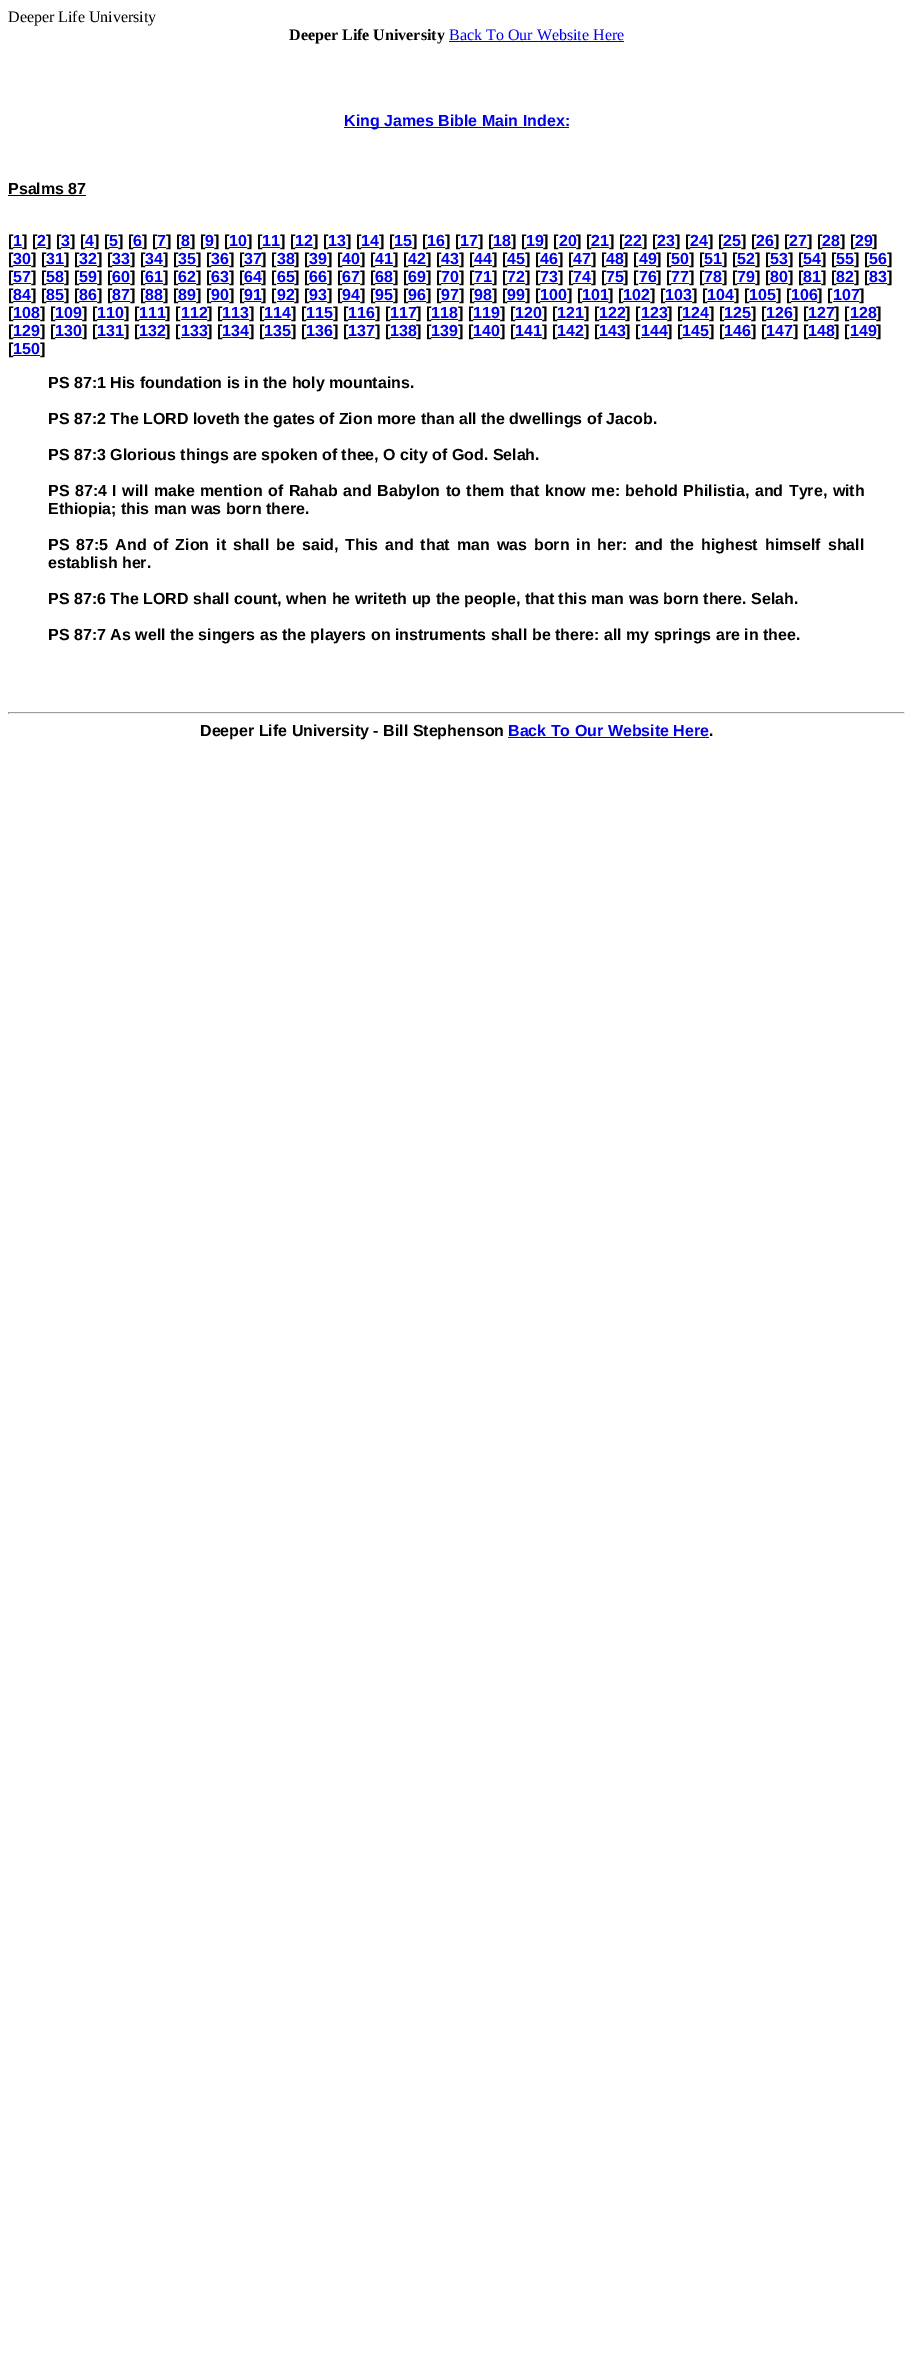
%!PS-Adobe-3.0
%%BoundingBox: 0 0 913 2379
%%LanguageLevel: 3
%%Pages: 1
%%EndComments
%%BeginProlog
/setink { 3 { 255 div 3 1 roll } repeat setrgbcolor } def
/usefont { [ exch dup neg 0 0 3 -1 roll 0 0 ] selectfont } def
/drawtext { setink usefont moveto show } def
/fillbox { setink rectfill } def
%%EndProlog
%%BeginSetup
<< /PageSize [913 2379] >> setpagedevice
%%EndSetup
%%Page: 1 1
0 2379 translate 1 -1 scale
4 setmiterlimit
0 0 913 2379 255 255 255 fillbox
(Deeper Life University) 8 22 /LiberationSerif-Regular 16 0 0 0 drawtext
(Deeper Life University) 289 40 /LiberationSerif-Bold 16 0 0 0 drawtext
(Back To Our Website Here) 449 40 /LiberationSerif-Regular 16 0 0 238 drawtext
449 41 175 1 0 0 238 fillbox
344 127 225 1 0 0 238 fillbox
(King James Bible Main Index:) 344 126 /LiberationSans-Bold 16 0 0 238 drawtext
(Psalms 87) 8 194 /LiberationSans-Bold 16 0 0 0 drawtext
8 195 78 1 0 0 0 fillbox
([) 8 246 /LiberationSans-Bold 16 0 0 0 drawtext
13 247 9 1 0 0 238 fillbox
(1) 13 246 /LiberationSans-Bold 16 0 0 238 drawtext
(] [) 22 246 /LiberationSans-Bold 16 0 0 0 drawtext
37 247 9 1 0 0 238 fillbox
(2) 37 246 /LiberationSans-Bold 16 0 0 238 drawtext
(] [) 46 246 /LiberationSans-Bold 16 0 0 0 drawtext
61 247 9 1 0 0 238 fillbox
(3) 61 246 /LiberationSans-Bold 16 0 0 238 drawtext
(] [) 70 246 /LiberationSans-Bold 16 0 0 0 drawtext
85 247 9 1 0 0 238 fillbox
(4) 85 246 /LiberationSans-Bold 16 0 0 238 drawtext
(] [) 94 246 /LiberationSans-Bold 16 0 0 0 drawtext
109 247 9 1 0 0 238 fillbox
(5) 109 246 /LiberationSans-Bold 16 0 0 238 drawtext
(] [) 118 246 /LiberationSans-Bold 16 0 0 0 drawtext
133 247 9 1 0 0 238 fillbox
(6) 133 246 /LiberationSans-Bold 16 0 0 238 drawtext
(] [) 142 246 /LiberationSans-Bold 16 0 0 0 drawtext
157 247 9 1 0 0 238 fillbox
(7) 157 246 /LiberationSans-Bold 16 0 0 238 drawtext
(] [) 166 246 /LiberationSans-Bold 16 0 0 0 drawtext
181 247 9 1 0 0 238 fillbox
(8) 181 246 /LiberationSans-Bold 16 0 0 238 drawtext
(] [) 190 246 /LiberationSans-Bold 16 0 0 0 drawtext
205 247 9 1 0 0 238 fillbox
(9) 205 246 /LiberationSans-Bold 16 0 0 238 drawtext
(] [) 214 246 /LiberationSans-Bold 16 0 0 0 drawtext
229 247 18 1 0 0 238 fillbox
(10) 229 246 /LiberationSans-Bold 16 0 0 238 drawtext
(] [) 247 246 /LiberationSans-Bold 16 0 0 0 drawtext
262 247 18 1 0 0 238 fillbox
(11) 262 246 /LiberationSans-Bold 16 0 0 238 drawtext
(] [) 280 246 /LiberationSans-Bold 16 0 0 0 drawtext
295 247 18 1 0 0 238 fillbox
(12) 295 246 /LiberationSans-Bold 16 0 0 238 drawtext
(] [) 313 246 /LiberationSans-Bold 16 0 0 0 drawtext
328 247 18 1 0 0 238 fillbox
(13) 328 246 /LiberationSans-Bold 16 0 0 238 drawtext
(] [) 346 246 /LiberationSans-Bold 16 0 0 0 drawtext
361 247 18 1 0 0 238 fillbox
(14) 361 246 /LiberationSans-Bold 16 0 0 238 drawtext
(] [) 379 246 /LiberationSans-Bold 16 0 0 0 drawtext
394 247 18 1 0 0 238 fillbox
(15) 394 246 /LiberationSans-Bold 16 0 0 238 drawtext
(] [) 412 246 /LiberationSans-Bold 16 0 0 0 drawtext
427 247 18 1 0 0 238 fillbox
(16) 427 246 /LiberationSans-Bold 16 0 0 238 drawtext
(] [) 445 246 /LiberationSans-Bold 16 0 0 0 drawtext
460 247 18 1 0 0 238 fillbox
(17) 460 246 /LiberationSans-Bold 16 0 0 238 drawtext
(] [) 478 246 /LiberationSans-Bold 16 0 0 0 drawtext
493 247 18 1 0 0 238 fillbox
(18) 493 246 /LiberationSans-Bold 16 0 0 238 drawtext
(] [) 511 246 /LiberationSans-Bold 16 0 0 0 drawtext
526 247 17 1 0 0 238 fillbox
(19) 526 246 /LiberationSans-Bold 16 0 0 238 drawtext
(] [) 543 246 /LiberationSans-Bold 16 0 0 0 drawtext
559 247 17 1 0 0 238 fillbox
(20) 559 246 /LiberationSans-Bold 16 0 0 238 drawtext
(] [) 576 246 /LiberationSans-Bold 16 0 0 0 drawtext
591 247 18 1 0 0 238 fillbox
(21) 591 246 /LiberationSans-Bold 16 0 0 238 drawtext
(] [) 609 246 /LiberationSans-Bold 16 0 0 0 drawtext
624 247 18 1 0 0 238 fillbox
(22) 624 246 /LiberationSans-Bold 16 0 0 238 drawtext
(] [) 642 246 /LiberationSans-Bold 16 0 0 0 drawtext
657 247 18 1 0 0 238 fillbox
(23) 657 246 /LiberationSans-Bold 16 0 0 238 drawtext
(] [) 675 246 /LiberationSans-Bold 16 0 0 0 drawtext
690 247 18 1 0 0 238 fillbox
(24) 690 246 /LiberationSans-Bold 16 0 0 238 drawtext
(] [) 708 246 /LiberationSans-Bold 16 0 0 0 drawtext
723 247 18 1 0 0 238 fillbox
(25) 723 246 /LiberationSans-Bold 16 0 0 238 drawtext
(] [) 741 246 /LiberationSans-Bold 16 0 0 0 drawtext
756 247 18 1 0 0 238 fillbox
(26) 756 246 /LiberationSans-Bold 16 0 0 238 drawtext
(] [) 774 246 /LiberationSans-Bold 16 0 0 0 drawtext
789 247 18 1 0 0 238 fillbox
(27) 789 246 /LiberationSans-Bold 16 0 0 238 drawtext
(] [) 807 246 /LiberationSans-Bold 16 0 0 0 drawtext
822 247 18 1 0 0 238 fillbox
(28) 822 246 /LiberationSans-Bold 16 0 0 238 drawtext
(] [) 840 246 /LiberationSans-Bold 16 0 0 0 drawtext
855 247 17 1 0 0 238 fillbox
(29) 855 246 /LiberationSans-Bold 16 0 0 238 drawtext
(]) 872 246 /LiberationSans-Bold 16 0 0 0 drawtext
([) 8 264 /LiberationSans-Bold 16 0 0 0 drawtext
13 265 18 1 0 0 238 fillbox
(30) 13 264 /LiberationSans-Bold 16 0 0 238 drawtext
(] [) 31 264 /LiberationSans-Bold 16 0 0 0 drawtext
46 265 18 1 0 0 238 fillbox
(31) 46 264 /LiberationSans-Bold 16 0 0 238 drawtext
(] [) 64 264 /LiberationSans-Bold 16 0 0 0 drawtext
79 265 18 1 0 0 238 fillbox
(32) 79 264 /LiberationSans-Bold 16 0 0 238 drawtext
(] [) 97 264 /LiberationSans-Bold 16 0 0 0 drawtext
112 265 18 1 0 0 238 fillbox
(33) 112 264 /LiberationSans-Bold 16 0 0 238 drawtext
(] [) 130 264 /LiberationSans-Bold 16 0 0 0 drawtext
145 265 18 1 0 0 238 fillbox
(34) 145 264 /LiberationSans-Bold 16 0 0 238 drawtext
(] [) 163 264 /LiberationSans-Bold 16 0 0 0 drawtext
178 265 18 1 0 0 238 fillbox
(35) 178 264 /LiberationSans-Bold 16 0 0 238 drawtext
(] [) 196 264 /LiberationSans-Bold 16 0 0 0 drawtext
211 265 18 1 0 0 238 fillbox
(36) 211 264 /LiberationSans-Bold 16 0 0 238 drawtext
(] [) 229 264 /LiberationSans-Bold 16 0 0 0 drawtext
244 265 17 1 0 0 238 fillbox
(37) 244 264 /LiberationSans-Bold 16 0 0 238 drawtext
(] [) 261 264 /LiberationSans-Bold 16 0 0 0 drawtext
277 265 17 1 0 0 238 fillbox
(38) 277 264 /LiberationSans-Bold 16 0 0 238 drawtext
(] [) 294 264 /LiberationSans-Bold 16 0 0 0 drawtext
309 265 18 1 0 0 238 fillbox
(39) 309 264 /LiberationSans-Bold 16 0 0 238 drawtext
(] [) 327 264 /LiberationSans-Bold 16 0 0 0 drawtext
342 265 18 1 0 0 238 fillbox
(40) 342 264 /LiberationSans-Bold 16 0 0 238 drawtext
(] [) 360 264 /LiberationSans-Bold 16 0 0 0 drawtext
375 265 18 1 0 0 238 fillbox
(41) 375 264 /LiberationSans-Bold 16 0 0 238 drawtext
(] [) 393 264 /LiberationSans-Bold 16 0 0 0 drawtext
408 265 18 1 0 0 238 fillbox
(42) 408 264 /LiberationSans-Bold 16 0 0 238 drawtext
(] [) 426 264 /LiberationSans-Bold 16 0 0 0 drawtext
441 265 18 1 0 0 238 fillbox
(43) 441 264 /LiberationSans-Bold 16 0 0 238 drawtext
(] [) 459 264 /LiberationSans-Bold 16 0 0 0 drawtext
474 265 18 1 0 0 238 fillbox
(44) 474 264 /LiberationSans-Bold 16 0 0 238 drawtext
(] [) 492 264 /LiberationSans-Bold 16 0 0 0 drawtext
507 265 18 1 0 0 238 fillbox
(45) 507 264 /LiberationSans-Bold 16 0 0 238 drawtext
(] [) 525 264 /LiberationSans-Bold 16 0 0 0 drawtext
540 265 18 1 0 0 238 fillbox
(46) 540 264 /LiberationSans-Bold 16 0 0 238 drawtext
(] [) 558 264 /LiberationSans-Bold 16 0 0 0 drawtext
573 265 18 1 0 0 238 fillbox
(47) 573 264 /LiberationSans-Bold 16 0 0 238 drawtext
(] [) 591 264 /LiberationSans-Bold 16 0 0 0 drawtext
606 265 17 1 0 0 238 fillbox
(48) 606 264 /LiberationSans-Bold 16 0 0 238 drawtext
(] [) 623 264 /LiberationSans-Bold 16 0 0 0 drawtext
639 265 17 1 0 0 238 fillbox
(49) 639 264 /LiberationSans-Bold 16 0 0 238 drawtext
(] [) 656 264 /LiberationSans-Bold 16 0 0 0 drawtext
671 265 18 1 0 0 238 fillbox
(50) 671 264 /LiberationSans-Bold 16 0 0 238 drawtext
(] [) 689 264 /LiberationSans-Bold 16 0 0 0 drawtext
704 265 18 1 0 0 238 fillbox
(51) 704 264 /LiberationSans-Bold 16 0 0 238 drawtext
(] [) 722 264 /LiberationSans-Bold 16 0 0 0 drawtext
737 265 18 1 0 0 238 fillbox
(52) 737 264 /LiberationSans-Bold 16 0 0 238 drawtext
(] [) 755 264 /LiberationSans-Bold 16 0 0 0 drawtext
770 265 18 1 0 0 238 fillbox
(53) 770 264 /LiberationSans-Bold 16 0 0 238 drawtext
(] [) 788 264 /LiberationSans-Bold 16 0 0 0 drawtext
803 265 18 1 0 0 238 fillbox
(54) 803 264 /LiberationSans-Bold 16 0 0 238 drawtext
(] [) 821 264 /LiberationSans-Bold 16 0 0 0 drawtext
836 265 18 1 0 0 238 fillbox
(55) 836 264 /LiberationSans-Bold 16 0 0 238 drawtext
(] [) 854 264 /LiberationSans-Bold 16 0 0 0 drawtext
869 265 18 1 0 0 238 fillbox
(56) 869 264 /LiberationSans-Bold 16 0 0 238 drawtext
(]) 887 264 /LiberationSans-Bold 16 0 0 0 drawtext
([) 8 282 /LiberationSans-Bold 16 0 0 0 drawtext
13 283 18 1 0 0 238 fillbox
(57) 13 282 /LiberationSans-Bold 16 0 0 238 drawtext
(] [) 31 282 /LiberationSans-Bold 16 0 0 0 drawtext
46 283 18 1 0 0 238 fillbox
(58) 46 282 /LiberationSans-Bold 16 0 0 238 drawtext
(] [) 64 282 /LiberationSans-Bold 16 0 0 0 drawtext
79 283 18 1 0 0 238 fillbox
(59) 79 282 /LiberationSans-Bold 16 0 0 238 drawtext
(] [) 97 282 /LiberationSans-Bold 16 0 0 0 drawtext
112 283 18 1 0 0 238 fillbox
(60) 112 282 /LiberationSans-Bold 16 0 0 238 drawtext
(] [) 130 282 /LiberationSans-Bold 16 0 0 0 drawtext
145 283 18 1 0 0 238 fillbox
(61) 145 282 /LiberationSans-Bold 16 0 0 238 drawtext
(] [) 163 282 /LiberationSans-Bold 16 0 0 0 drawtext
178 283 18 1 0 0 238 fillbox
(62) 178 282 /LiberationSans-Bold 16 0 0 238 drawtext
(] [) 196 282 /LiberationSans-Bold 16 0 0 0 drawtext
211 283 18 1 0 0 238 fillbox
(63) 211 282 /LiberationSans-Bold 16 0 0 238 drawtext
(] [) 229 282 /LiberationSans-Bold 16 0 0 0 drawtext
244 283 17 1 0 0 238 fillbox
(64) 244 282 /LiberationSans-Bold 16 0 0 238 drawtext
(] [) 261 282 /LiberationSans-Bold 16 0 0 0 drawtext
277 283 17 1 0 0 238 fillbox
(65) 277 282 /LiberationSans-Bold 16 0 0 238 drawtext
(] [) 294 282 /LiberationSans-Bold 16 0 0 0 drawtext
309 283 18 1 0 0 238 fillbox
(66) 309 282 /LiberationSans-Bold 16 0 0 238 drawtext
(] [) 327 282 /LiberationSans-Bold 16 0 0 0 drawtext
342 283 18 1 0 0 238 fillbox
(67) 342 282 /LiberationSans-Bold 16 0 0 238 drawtext
(] [) 360 282 /LiberationSans-Bold 16 0 0 0 drawtext
375 283 18 1 0 0 238 fillbox
(68) 375 282 /LiberationSans-Bold 16 0 0 238 drawtext
(] [) 393 282 /LiberationSans-Bold 16 0 0 0 drawtext
408 283 18 1 0 0 238 fillbox
(69) 408 282 /LiberationSans-Bold 16 0 0 238 drawtext
(] [) 426 282 /LiberationSans-Bold 16 0 0 0 drawtext
441 283 18 1 0 0 238 fillbox
(70) 441 282 /LiberationSans-Bold 16 0 0 238 drawtext
(] [) 459 282 /LiberationSans-Bold 16 0 0 0 drawtext
474 283 18 1 0 0 238 fillbox
(71) 474 282 /LiberationSans-Bold 16 0 0 238 drawtext
(] [) 492 282 /LiberationSans-Bold 16 0 0 0 drawtext
507 283 18 1 0 0 238 fillbox
(72) 507 282 /LiberationSans-Bold 16 0 0 238 drawtext
(] [) 525 282 /LiberationSans-Bold 16 0 0 0 drawtext
540 283 18 1 0 0 238 fillbox
(73) 540 282 /LiberationSans-Bold 16 0 0 238 drawtext
(] [) 558 282 /LiberationSans-Bold 16 0 0 0 drawtext
573 283 18 1 0 0 238 fillbox
(74) 573 282 /LiberationSans-Bold 16 0 0 238 drawtext
(] [) 591 282 /LiberationSans-Bold 16 0 0 0 drawtext
606 283 17 1 0 0 238 fillbox
(75) 606 282 /LiberationSans-Bold 16 0 0 238 drawtext
(] [) 623 282 /LiberationSans-Bold 16 0 0 0 drawtext
639 283 17 1 0 0 238 fillbox
(76) 639 282 /LiberationSans-Bold 16 0 0 238 drawtext
(] [) 656 282 /LiberationSans-Bold 16 0 0 0 drawtext
671 283 18 1 0 0 238 fillbox
(77) 671 282 /LiberationSans-Bold 16 0 0 238 drawtext
(] [) 689 282 /LiberationSans-Bold 16 0 0 0 drawtext
704 283 18 1 0 0 238 fillbox
(78) 704 282 /LiberationSans-Bold 16 0 0 238 drawtext
(] [) 722 282 /LiberationSans-Bold 16 0 0 0 drawtext
737 283 18 1 0 0 238 fillbox
(79) 737 282 /LiberationSans-Bold 16 0 0 238 drawtext
(] [) 755 282 /LiberationSans-Bold 16 0 0 0 drawtext
770 283 18 1 0 0 238 fillbox
(80) 770 282 /LiberationSans-Bold 16 0 0 238 drawtext
(] [) 788 282 /LiberationSans-Bold 16 0 0 0 drawtext
803 283 18 1 0 0 238 fillbox
(81) 803 282 /LiberationSans-Bold 16 0 0 238 drawtext
(] [) 821 282 /LiberationSans-Bold 16 0 0 0 drawtext
836 283 18 1 0 0 238 fillbox
(82) 836 282 /LiberationSans-Bold 16 0 0 238 drawtext
(] [) 854 282 /LiberationSans-Bold 16 0 0 0 drawtext
869 283 18 1 0 0 238 fillbox
(83) 869 282 /LiberationSans-Bold 16 0 0 238 drawtext
(]) 887 282 /LiberationSans-Bold 16 0 0 0 drawtext
([) 8 300 /LiberationSans-Bold 16 0 0 0 drawtext
13 301 18 1 0 0 238 fillbox
(84) 13 300 /LiberationSans-Bold 16 0 0 238 drawtext
(] [) 31 300 /LiberationSans-Bold 16 0 0 0 drawtext
46 301 18 1 0 0 238 fillbox
(85) 46 300 /LiberationSans-Bold 16 0 0 238 drawtext
(] [) 64 300 /LiberationSans-Bold 16 0 0 0 drawtext
79 301 18 1 0 0 238 fillbox
(86) 79 300 /LiberationSans-Bold 16 0 0 238 drawtext
(] [) 97 300 /LiberationSans-Bold 16 0 0 0 drawtext
112 301 18 1 0 0 238 fillbox
(87) 112 300 /LiberationSans-Bold 16 0 0 238 drawtext
(] [) 130 300 /LiberationSans-Bold 16 0 0 0 drawtext
145 301 18 1 0 0 238 fillbox
(88) 145 300 /LiberationSans-Bold 16 0 0 238 drawtext
(] [) 163 300 /LiberationSans-Bold 16 0 0 0 drawtext
178 301 18 1 0 0 238 fillbox
(89) 178 300 /LiberationSans-Bold 16 0 0 238 drawtext
(] [) 196 300 /LiberationSans-Bold 16 0 0 0 drawtext
211 301 18 1 0 0 238 fillbox
(90) 211 300 /LiberationSans-Bold 16 0 0 238 drawtext
(] [) 229 300 /LiberationSans-Bold 16 0 0 0 drawtext
244 301 17 1 0 0 238 fillbox
(91) 244 300 /LiberationSans-Bold 16 0 0 238 drawtext
(] [) 261 300 /LiberationSans-Bold 16 0 0 0 drawtext
277 301 17 1 0 0 238 fillbox
(92) 277 300 /LiberationSans-Bold 16 0 0 238 drawtext
(] [) 294 300 /LiberationSans-Bold 16 0 0 0 drawtext
309 301 18 1 0 0 238 fillbox
(93) 309 300 /LiberationSans-Bold 16 0 0 238 drawtext
(] [) 327 300 /LiberationSans-Bold 16 0 0 0 drawtext
342 301 18 1 0 0 238 fillbox
(94) 342 300 /LiberationSans-Bold 16 0 0 238 drawtext
(] [) 360 300 /LiberationSans-Bold 16 0 0 0 drawtext
375 301 18 1 0 0 238 fillbox
(95) 375 300 /LiberationSans-Bold 16 0 0 238 drawtext
(] [) 393 300 /LiberationSans-Bold 16 0 0 0 drawtext
408 301 18 1 0 0 238 fillbox
(96) 408 300 /LiberationSans-Bold 16 0 0 238 drawtext
(] [) 426 300 /LiberationSans-Bold 16 0 0 0 drawtext
441 301 18 1 0 0 238 fillbox
(97) 441 300 /LiberationSans-Bold 16 0 0 238 drawtext
(] [) 459 300 /LiberationSans-Bold 16 0 0 0 drawtext
474 301 18 1 0 0 238 fillbox
(98) 474 300 /LiberationSans-Bold 16 0 0 238 drawtext
(] [) 492 300 /LiberationSans-Bold 16 0 0 0 drawtext
507 301 18 1 0 0 238 fillbox
(99) 507 300 /LiberationSans-Bold 16 0 0 238 drawtext
(] [) 525 300 /LiberationSans-Bold 16 0 0 0 drawtext
540 301 27 1 0 0 238 fillbox
(100) 540 300 /LiberationSans-Bold 16 0 0 238 drawtext
(] [) 567 300 /LiberationSans-Bold 16 0 0 0 drawtext
582 301 26 1 0 0 238 fillbox
(101) 582 300 /LiberationSans-Bold 16 0 0 238 drawtext
(] [) 608 300 /LiberationSans-Bold 16 0 0 0 drawtext
623 301 27 1 0 0 238 fillbox
(102) 623 300 /LiberationSans-Bold 16 0 0 238 drawtext
(] [) 650 300 /LiberationSans-Bold 16 0 0 0 drawtext
665 301 27 1 0 0 238 fillbox
(103) 665 300 /LiberationSans-Bold 16 0 0 238 drawtext
(] [) 692 300 /LiberationSans-Bold 16 0 0 0 drawtext
707 301 27 1 0 0 238 fillbox
(104) 707 300 /LiberationSans-Bold 16 0 0 238 drawtext
(] [) 734 300 /LiberationSans-Bold 16 0 0 0 drawtext
749 301 27 1 0 0 238 fillbox
(105) 749 300 /LiberationSans-Bold 16 0 0 238 drawtext
(] [) 776 300 /LiberationSans-Bold 16 0 0 0 drawtext
791 301 26 1 0 0 238 fillbox
(106) 791 300 /LiberationSans-Bold 16 0 0 238 drawtext
(] [) 817 300 /LiberationSans-Bold 16 0 0 0 drawtext
833 301 26 1 0 0 238 fillbox
(107) 833 300 /LiberationSans-Bold 16 0 0 238 drawtext
(]) 859 300 /LiberationSans-Bold 16 0 0 0 drawtext
([) 8 318 /LiberationSans-Bold 16 0 0 0 drawtext
13 319 27 1 0 0 238 fillbox
(108) 13 318 /LiberationSans-Bold 16 0 0 238 drawtext
(] [) 40 318 /LiberationSans-Bold 16 0 0 0 drawtext
55 319 27 1 0 0 238 fillbox
(109) 55 318 /LiberationSans-Bold 16 0 0 238 drawtext
(] [) 82 318 /LiberationSans-Bold 16 0 0 0 drawtext
97 319 27 1 0 0 238 fillbox
(110) 97 318 /LiberationSans-Bold 16 0 0 238 drawtext
(] [) 124 318 /LiberationSans-Bold 16 0 0 0 drawtext
139 319 26 1 0 0 238 fillbox
(111) 139 318 /LiberationSans-Bold 16 0 0 238 drawtext
(] [) 165 318 /LiberationSans-Bold 16 0 0 0 drawtext
181 319 26 1 0 0 238 fillbox
(112) 181 318 /LiberationSans-Bold 16 0 0 238 drawtext
(] [) 207 318 /LiberationSans-Bold 16 0 0 0 drawtext
222 319 27 1 0 0 238 fillbox
(113) 222 318 /LiberationSans-Bold 16 0 0 238 drawtext
(] [) 249 318 /LiberationSans-Bold 16 0 0 0 drawtext
264 319 27 1 0 0 238 fillbox
(114) 264 318 /LiberationSans-Bold 16 0 0 238 drawtext
(] [) 291 318 /LiberationSans-Bold 16 0 0 0 drawtext
306 319 27 1 0 0 238 fillbox
(115) 306 318 /LiberationSans-Bold 16 0 0 238 drawtext
(] [) 333 318 /LiberationSans-Bold 16 0 0 0 drawtext
348 319 27 1 0 0 238 fillbox
(116) 348 318 /LiberationSans-Bold 16 0 0 238 drawtext
(] [) 375 318 /LiberationSans-Bold 16 0 0 0 drawtext
390 319 26 1 0 0 238 fillbox
(117) 390 318 /LiberationSans-Bold 16 0 0 238 drawtext
(] [) 416 318 /LiberationSans-Bold 16 0 0 0 drawtext
431 319 27 1 0 0 238 fillbox
(118) 431 318 /LiberationSans-Bold 16 0 0 238 drawtext
(] [) 458 318 /LiberationSans-Bold 16 0 0 0 drawtext
473 319 27 1 0 0 238 fillbox
(119) 473 318 /LiberationSans-Bold 16 0 0 238 drawtext
(] [) 500 318 /LiberationSans-Bold 16 0 0 0 drawtext
515 319 27 1 0 0 238 fillbox
(120) 515 318 /LiberationSans-Bold 16 0 0 238 drawtext
(] [) 542 318 /LiberationSans-Bold 16 0 0 0 drawtext
557 319 27 1 0 0 238 fillbox
(121) 557 318 /LiberationSans-Bold 16 0 0 238 drawtext
(] [) 584 318 /LiberationSans-Bold 16 0 0 0 drawtext
599 319 26 1 0 0 238 fillbox
(122) 599 318 /LiberationSans-Bold 16 0 0 238 drawtext
(] [) 625 318 /LiberationSans-Bold 16 0 0 0 drawtext
641 319 26 1 0 0 238 fillbox
(123) 641 318 /LiberationSans-Bold 16 0 0 238 drawtext
(] [) 667 318 /LiberationSans-Bold 16 0 0 0 drawtext
682 319 27 1 0 0 238 fillbox
(124) 682 318 /LiberationSans-Bold 16 0 0 238 drawtext
(] [) 709 318 /LiberationSans-Bold 16 0 0 0 drawtext
724 319 27 1 0 0 238 fillbox
(125) 724 318 /LiberationSans-Bold 16 0 0 238 drawtext
(] [) 751 318 /LiberationSans-Bold 16 0 0 0 drawtext
766 319 27 1 0 0 238 fillbox
(126) 766 318 /LiberationSans-Bold 16 0 0 238 drawtext
(] [) 793 318 /LiberationSans-Bold 16 0 0 0 drawtext
808 319 26 1 0 0 238 fillbox
(127) 808 318 /LiberationSans-Bold 16 0 0 238 drawtext
(] [) 834 318 /LiberationSans-Bold 16 0 0 0 drawtext
850 319 26 1 0 0 238 fillbox
(128) 850 318 /LiberationSans-Bold 16 0 0 238 drawtext
(]) 876 318 /LiberationSans-Bold 16 0 0 0 drawtext
([) 8 336 /LiberationSans-Bold 16 0 0 0 drawtext
13 337 27 1 0 0 238 fillbox
(129) 13 336 /LiberationSans-Bold 16 0 0 238 drawtext
(] [) 40 336 /LiberationSans-Bold 16 0 0 0 drawtext
55 337 27 1 0 0 238 fillbox
(130) 55 336 /LiberationSans-Bold 16 0 0 238 drawtext
(] [) 82 336 /LiberationSans-Bold 16 0 0 0 drawtext
97 337 27 1 0 0 238 fillbox
(131) 97 336 /LiberationSans-Bold 16 0 0 238 drawtext
(] [) 124 336 /LiberationSans-Bold 16 0 0 0 drawtext
139 337 26 1 0 0 238 fillbox
(132) 139 336 /LiberationSans-Bold 16 0 0 238 drawtext
(] [) 165 336 /LiberationSans-Bold 16 0 0 0 drawtext
181 337 26 1 0 0 238 fillbox
(133) 181 336 /LiberationSans-Bold 16 0 0 238 drawtext
(] [) 207 336 /LiberationSans-Bold 16 0 0 0 drawtext
222 337 27 1 0 0 238 fillbox
(134) 222 336 /LiberationSans-Bold 16 0 0 238 drawtext
(] [) 249 336 /LiberationSans-Bold 16 0 0 0 drawtext
264 337 27 1 0 0 238 fillbox
(135) 264 336 /LiberationSans-Bold 16 0 0 238 drawtext
(] [) 291 336 /LiberationSans-Bold 16 0 0 0 drawtext
306 337 27 1 0 0 238 fillbox
(136) 306 336 /LiberationSans-Bold 16 0 0 238 drawtext
(] [) 333 336 /LiberationSans-Bold 16 0 0 0 drawtext
348 337 27 1 0 0 238 fillbox
(137) 348 336 /LiberationSans-Bold 16 0 0 238 drawtext
(] [) 375 336 /LiberationSans-Bold 16 0 0 0 drawtext
390 337 26 1 0 0 238 fillbox
(138) 390 336 /LiberationSans-Bold 16 0 0 238 drawtext
(] [) 416 336 /LiberationSans-Bold 16 0 0 0 drawtext
431 337 27 1 0 0 238 fillbox
(139) 431 336 /LiberationSans-Bold 16 0 0 238 drawtext
(] [) 458 336 /LiberationSans-Bold 16 0 0 0 drawtext
473 337 27 1 0 0 238 fillbox
(140) 473 336 /LiberationSans-Bold 16 0 0 238 drawtext
(] [) 500 336 /LiberationSans-Bold 16 0 0 0 drawtext
515 337 27 1 0 0 238 fillbox
(141) 515 336 /LiberationSans-Bold 16 0 0 238 drawtext
(] [) 542 336 /LiberationSans-Bold 16 0 0 0 drawtext
557 337 27 1 0 0 238 fillbox
(142) 557 336 /LiberationSans-Bold 16 0 0 238 drawtext
(] [) 584 336 /LiberationSans-Bold 16 0 0 0 drawtext
599 337 26 1 0 0 238 fillbox
(143) 599 336 /LiberationSans-Bold 16 0 0 238 drawtext
(] [) 625 336 /LiberationSans-Bold 16 0 0 0 drawtext
641 337 26 1 0 0 238 fillbox
(144) 641 336 /LiberationSans-Bold 16 0 0 238 drawtext
(] [) 667 336 /LiberationSans-Bold 16 0 0 0 drawtext
682 337 27 1 0 0 238 fillbox
(145) 682 336 /LiberationSans-Bold 16 0 0 238 drawtext
(] [) 709 336 /LiberationSans-Bold 16 0 0 0 drawtext
724 337 27 1 0 0 238 fillbox
(146) 724 336 /LiberationSans-Bold 16 0 0 238 drawtext
(] [) 751 336 /LiberationSans-Bold 16 0 0 0 drawtext
766 337 27 1 0 0 238 fillbox
(147) 766 336 /LiberationSans-Bold 16 0 0 238 drawtext
(] [) 793 336 /LiberationSans-Bold 16 0 0 0 drawtext
808 337 26 1 0 0 238 fillbox
(148) 808 336 /LiberationSans-Bold 16 0 0 238 drawtext
(] [) 834 336 /LiberationSans-Bold 16 0 0 0 drawtext
850 337 26 1 0 0 238 fillbox
(149) 850 336 /LiberationSans-Bold 16 0 0 238 drawtext
(]) 876 336 /LiberationSans-Bold 16 0 0 0 drawtext
([) 8 354 /LiberationSans-Bold 16 0 0 0 drawtext
13 355 27 1 0 0 238 fillbox
(150) 13 354 /LiberationSans-Bold 16 0 0 238 drawtext
(]) 40 354 /LiberationSans-Bold 16 0 0 0 drawtext
(PS 87:1 His foundation is in the holy mountains.) 48 388 /LiberationSans-Bold 16 0 0 0 drawtext
(PS 87:2 The LORD loveth the gates of Zion more than all the dwellings of Jacob.) 48 424 /LiberationSans-Bold 16 0 0 0 drawtext
(PS 87:3 Glorious things are spoken of thee, O city of God. Selah.) 48 460 /LiberationSans-Bold 16 0 0 0 drawtext
48 496 moveto 1.1 0 32 (PS 87:4 I will make mention of Rahab and Babylon to them that know me: behold Philistia, and Tyre, with) widthshow
(Ethiopia; this man was born there.) 48 514 /LiberationSans-Bold 16 0 0 0 drawtext
48 550 moveto 2.5 0 32 (PS 87:5 And of Zion it shall be said, This and that man was born in her: and the highest himself shall) widthshow
(establish her.) 48 568 /LiberationSans-Bold 16 0 0 0 drawtext
(PS 87:6 The LORD shall count, when he writeth up the people, that this man was born there. Selah.) 48 604 /LiberationSans-Bold 16 0 0 0 drawtext
(PS 87:7 As well the singers as the players on instruments shall be there: all my springs are in thee.) 48 640 /LiberationSans-Bold 16 0 0 0 drawtext
8 712 897 1 159 159 159 fillbox
904 712 1 2 238 238 238 fillbox
8 713 897 1 238 238 238 fillbox
8 712 1 2 159 159 159 fillbox
(Deeper Life University - Bill Stephenson) 200 736 /LiberationSans-Bold 16 0 0 0 drawtext
(Back To Our Website Here) 508 736 /LiberationSans-Bold 16 0 0 238 drawtext
(.) 709 736 /LiberationSans-Bold 16 0 0 0 drawtext
508 737 201 1 0 0 238 fillbox
showpage
%%EOF
